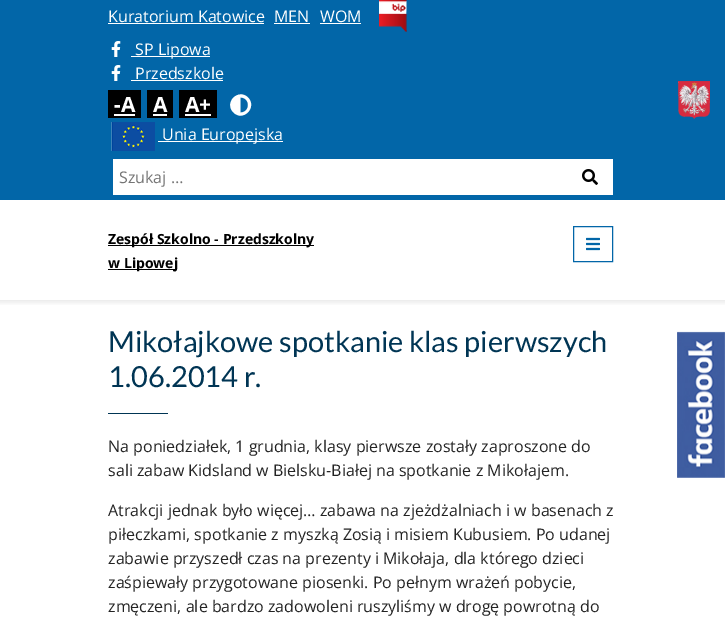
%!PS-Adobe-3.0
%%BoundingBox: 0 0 725 626
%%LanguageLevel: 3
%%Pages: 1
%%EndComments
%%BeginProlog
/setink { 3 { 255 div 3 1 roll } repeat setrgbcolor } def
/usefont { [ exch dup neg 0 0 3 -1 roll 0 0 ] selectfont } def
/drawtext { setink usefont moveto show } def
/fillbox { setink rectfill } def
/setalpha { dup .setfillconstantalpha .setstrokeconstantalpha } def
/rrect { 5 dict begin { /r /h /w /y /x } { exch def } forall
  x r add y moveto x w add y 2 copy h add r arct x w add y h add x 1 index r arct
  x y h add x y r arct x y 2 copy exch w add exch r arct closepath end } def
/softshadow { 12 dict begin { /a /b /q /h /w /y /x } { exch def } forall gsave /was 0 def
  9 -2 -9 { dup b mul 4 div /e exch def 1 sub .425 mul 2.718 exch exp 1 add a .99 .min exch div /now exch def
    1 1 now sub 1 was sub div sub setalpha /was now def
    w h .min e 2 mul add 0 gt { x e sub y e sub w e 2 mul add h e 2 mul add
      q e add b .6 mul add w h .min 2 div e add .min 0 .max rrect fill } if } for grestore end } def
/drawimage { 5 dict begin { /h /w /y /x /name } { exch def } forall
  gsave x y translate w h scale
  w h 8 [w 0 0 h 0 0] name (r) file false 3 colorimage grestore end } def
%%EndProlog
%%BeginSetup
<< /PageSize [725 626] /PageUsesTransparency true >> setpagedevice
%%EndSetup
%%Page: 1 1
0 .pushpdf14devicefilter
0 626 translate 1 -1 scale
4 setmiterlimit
0 0 725 626 255 255 255 fillbox
gsave
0 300 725 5 rectclip
0 0 0 setink
-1 0 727 302 0 3 0.1 softshadow
grestore
0 0 725 200 2 102 168 fillbox
(Kuratorium Katowice) 108 22 /OpenSans-Regular 16 255 255 255 drawtext
108 23 156 1 255 255 255 fillbox
(MEN) 274 22 /OpenSans-Regular 16 255 255 255 drawtext
274 23 36 1 255 255 255 fillbox
(WOM) 320 22 /OpenSans-Regular 16 255 255 255 drawtext
320 23 41 1 255 255 255 fillbox
(assets/img1.rgb) 379 0 28 32 drawimage
(assets/img2.rgb) 111 41 10 16 drawimage
131 56 79 1 255 255 255 fillbox
(SP Lipowa) 135 55 /OpenSans-Regular 16 255 255 255 drawtext
(assets/img2.rgb) 111 65 10 16 drawimage
(Przedszkole) 135 79 /OpenSans-Regular 16 255 255 255 drawtext
131 80 92 1 255 255 255 fillbox
108 90 33 28 0 0 0 fillbox
(-A) 114 112 /OpenSans-Bold 21 255 255 255 drawtext
114 114 21 2 255 255 255 fillbox
147 90 26 28 0 0 0 fillbox
(A) 153 112 /OpenSans-Bold 21 255 255 255 drawtext
153 114 14 2 255 255 255 fillbox
179 90 38 28 0 0 0 fillbox
(A+) 185 112 /OpenSans-Bold 21 255 255 255 drawtext
185 114 26 2 255 255 255 fillbox
233.5 112.5 moveto 223.5 102.5 238.5 88 248 97.5 curveto 257.5 107.5 243 122 233.5 112.5 curveto closepath 240.5 112.5 moveto 250.5 112.5 250.5 97.5 240.5 97.5 curveto closepath fill
(assets/img3.rgb) 111 122 44 29 drawimage
158 141 125 1 255 255 255 fillbox
(Unia Europejska) 162 140 /OpenSans-Regular 16 255 255 255 drawtext
113 159 500 36 255 255 255 fillbox
(Szukaj …) 119 183 /OpenSans-Regular 16 117 117 117 drawtext
(assets/img4.rgb) 582 169 16 16 drawimage
(assets/img5.rgb) 678 81 32 38 drawimage
108 245 206 1 0 0 0 fillbox
(Zespół Szkolno - Przedszkolny) 108 244 /OpenSans-Bold 14 0 0 0 drawtext
108 269 69 1 0 0 0 fillbox
(w Lipowej) 108 268 /OpenSans-Bold 14 0 0 0 drawtext
2 102 168 setink
573.5 226.5 39 35 rectstroke
(assets/img6.rgb) 586 237 14 14 drawimage
(Mikołajkowe spotkanie klas pierwszych) 108 352 /Lato-Regular 29 0 53 84 drawtext
(1.06.2014 r.) 108 387 /Lato-Regular 29 0 53 84 drawtext
108 413 60 1 0 53 84 fillbox
(Na poniedziałek, 1 grudnia, klasy pierwsze zostały zaproszone do) 108 452 /OpenSans-Regular 16 35 35 35 drawtext
(sali zabaw Kidsland w Bielsku-Białej na spotkanie z Mikołajem.) 108 476 /OpenSans-Regular 16 35 35 35 drawtext
(Atrakcji jednak było więcej… zabawa na zjeżdżalniach i w basenach z) 108 516 /OpenSans-Regular 16 35 35 35 drawtext
(piłeczkami, spotkanie z myszką Zosią i misiem Kubusiem. Po udanej) 108 540 /OpenSans-Regular 16 35 35 35 drawtext
(zabawie przyszedł czas na prezenty i Mikołaja, dla którego dzieci) 108 564 /OpenSans-Regular 16 35 35 35 drawtext
(zaśpiewały przygotowane piosenki. Po pełnym wrażeń pobycie,) 108 588 /OpenSans-Regular 16 35 35 35 drawtext
(zmęczeni, ale bardzo zadowoleni ruszyliśmy w drogę powrotną do) 108 612 /OpenSans-Regular 16 35 35 35 drawtext
(assets/img7.rgb) 677 331 48 147 drawimage
.poppdf14devicefilter showpage
%%EOF
